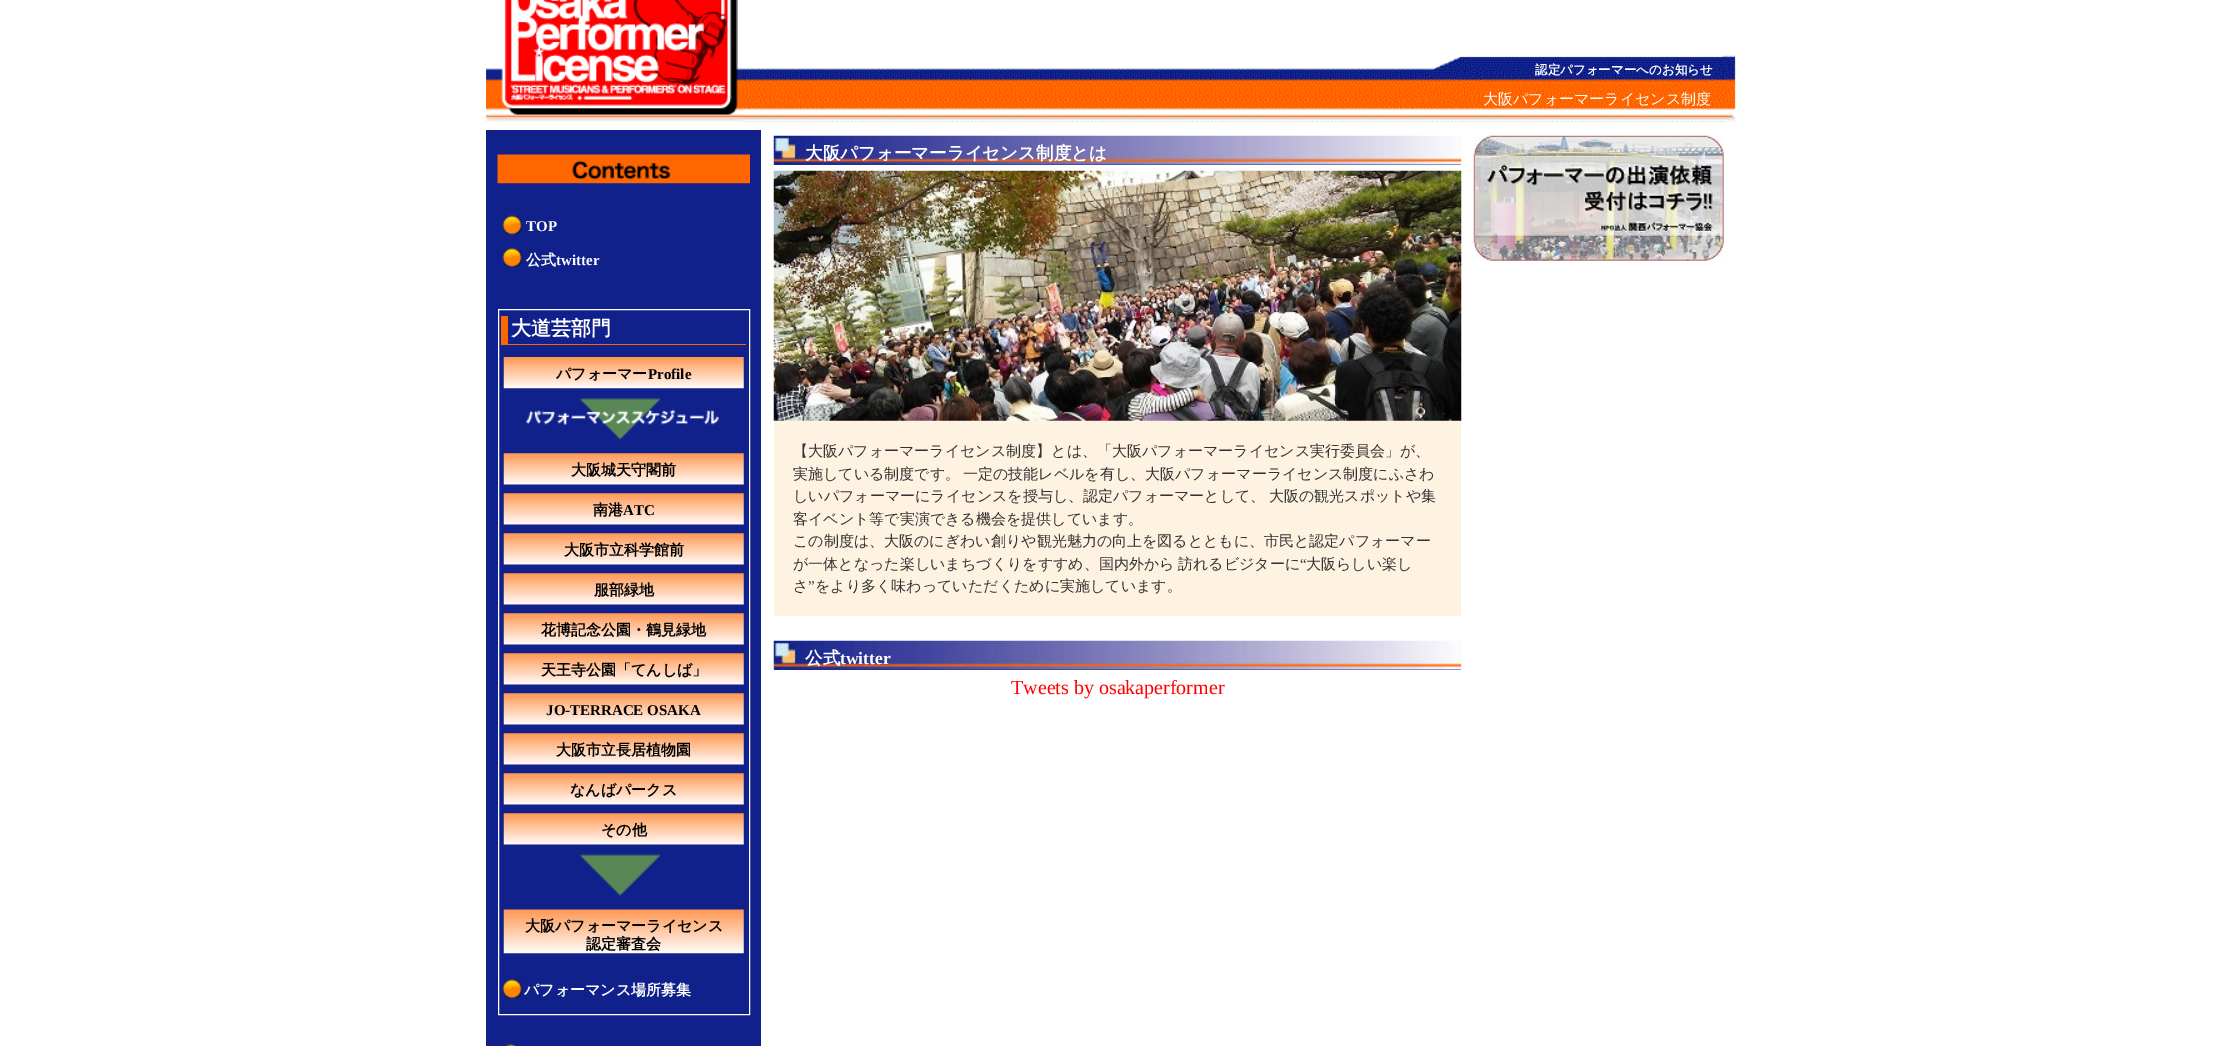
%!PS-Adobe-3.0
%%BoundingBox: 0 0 2222 1046
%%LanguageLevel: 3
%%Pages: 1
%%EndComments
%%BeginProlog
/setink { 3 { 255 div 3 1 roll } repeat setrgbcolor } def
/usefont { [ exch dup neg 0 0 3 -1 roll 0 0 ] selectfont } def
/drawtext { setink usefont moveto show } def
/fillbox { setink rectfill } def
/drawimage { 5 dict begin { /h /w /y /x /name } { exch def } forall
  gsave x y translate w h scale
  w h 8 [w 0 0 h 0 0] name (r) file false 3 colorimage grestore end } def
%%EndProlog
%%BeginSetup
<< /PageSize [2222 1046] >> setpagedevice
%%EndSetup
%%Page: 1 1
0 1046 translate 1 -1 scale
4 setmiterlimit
0 0 2222 1046 255 255 255 fillbox
(assets/img1.rgb) 486 0 1250 123 drawimage
(assets/img2.rgb) 486 0 257 122 drawimage
(認定パフォーマーへのお知らせ) 1535 74 /WenQuanYiZenHei-Bold 12.5 255 255 255 drawtext
(大阪パフォーマーライセンス制度) 1483 104 /WenQuanYiZenHei-Medium 15 255 255 255 drawtext
486 130 275 916 16 33 139 fillbox
(assets/img3.rgb) 497 154 253 30 drawimage
(assets/img4.rgb) 501 215 22 20 drawimage
(TOP) 526 231 /LiberationSerif-Bold 15 255 255 255 drawtext
(assets/img5.rgb) 501 248 22 19 drawimage
(公式) 526 265 /WenQuanYiZenHei-Bold 15 255 255 255 drawtext
(twitter) 556 265 /LiberationSerif-Bold 15 255 255 255 drawtext
498.5 309.5 251 705 rectstroke
501 344 245 1 255 102 0 fillbox
501 316 7 29 255 102 0 fillbox
(大道芸部門) 511 335 /WenQuanYiZenHei-Bold 20 255 255 255 drawtext
(assets/img6.rgb) 503 357 241 32 drawimage
(パフォーマー) 556 379 /WenQuanYiZenHei-Bold 15 0 0 0 drawtext
(Profile) 648 379 /LiberationSerif-Bold 15 0 0 0 drawtext
(assets/img7.rgb) 526 398 193 42 drawimage
(assets/img8.rgb) 503 453 241 32 drawimage
(大阪城天守閣前) 571 475 /WenQuanYiZenHei-Bold 15 0 0 0 drawtext
(assets/img8.rgb) 503 493 241 32 drawimage
(南港) 593 515 /WenQuanYiZenHei-Bold 15 0 0 0 drawtext
(ATC) 623 515 /LiberationSerif-Bold 15 0 0 0 drawtext
(assets/img9.rgb) 503 533 241 32 drawimage
(大阪市立科学館前) 564 555 /WenQuanYiZenHei-Bold 15 0 0 0 drawtext
(assets/img8.rgb) 503 573 241 32 drawimage
(服部緑地) 594 595 /WenQuanYiZenHei-Bold 15 0 0 0 drawtext
(assets/img8.rgb) 503 613 241 32 drawimage
(花博記念公園・鶴見緑地) 541 635 /WenQuanYiZenHei-Bold 15 0 0 0 drawtext
(assets/img8.rgb) 503 653 241 32 drawimage
(天王寺公園「てんしば」) 541 675 /WenQuanYiZenHei-Bold 15 0 0 0 drawtext
(assets/img8.rgb) 503 693 241 32 drawimage
(JO-TERRACE OSAKA) 546 715 /LiberationSerif-Bold 15 0 0 0 drawtext
(assets/img8.rgb) 503 733 241 32 drawimage
(大阪市立長居植物園) 556 755 /WenQuanYiZenHei-Bold 15 0 0 0 drawtext
(assets/img8.rgb) 503 773 241 32 drawimage
(なんばパークス) 570 795 /WenQuanYiZenHei-Bold 15 0 0 0 drawtext
(assets/img8.rgb) 503 813 241 32 drawimage
(その他) 601 835 /WenQuanYiZenHei-Bold 15 0 0 0 drawtext
(assets/img10.rgb) 580 854 81 42 drawimage
(assets/img11.rgb) 503 909 241 45 drawimage
(大阪パフォーマーライセンス) 525 931 /WenQuanYiZenHei-Bold 15 0 0 0 drawtext
(認定審査会) 586 949 /WenQuanYiZenHei-Bold 15 0 0 0 drawtext
(assets/img12.rgb) 501 979 22 20 drawimage
(パフォーマンス場所募集) 524 995 /WenQuanYiZenHei-Bold 15 255 255 255 drawtext
(assets/img13.rgb) 504 1044 14 2 drawimage
774 164 687 1 30 41 147 fillbox
(assets/img14.rgb) 773 135 689 30 drawimage
(大阪パフォーマーライセンス制度とは) 805 159 /WenQuanYiZenHei-Bold 17.5 255 255 255 drawtext
(assets/img15.rgb) 773 170 689 251 drawimage
774 421 687 195 254 242 224 fillbox
(【大阪パフォーマーライセンス制度】とは、「大阪パフォーマーライセンス実行委員会」が、) 793 456 /WenQuanYiZenHei-Medium 15 51 51 51 drawtext
(実施している制度です。) 793 479 /WenQuanYiZenHei-Medium 15 51 51 51 drawtext
(一定の技能レベルを有し、大阪パフォーマーライセンス制度にふさわ) 963 479 /WenQuanYiZenHei-Medium 15 51 51 51 drawtext
793 501 moveto -1 0 32 (しいパフォーマーにライセンスを授与し、認定パフォーマーとして、 大阪の観光スポットや集) widthshow
(客イベント等で実演できる機会を提供しています。) 793 524 /WenQuanYiZenHei-Medium 15 51 51 51 drawtext
(この制度は、大阪のにぎわい創りや観光魅力の向上を図るとともに、市民と認定パフォーマー) 793 546 /WenQuanYiZenHei-Medium 15 51 51 51 drawtext
793 569 moveto -1 0 32 (が一体となった楽しいまちづくりをすすめ、国内外から 訪れるビジターに) widthshow
(“) 1300 569 /LiberationSerif-Regular 15 51 51 51 drawtext
(大阪らしい楽し) 1306 569 /WenQuanYiZenHei-Medium 15 51 51 51 drawtext
(さ) 793 591 /WenQuanYiZenHei-Medium 15 51 51 51 drawtext
(”) 808 591 /LiberationSerif-Regular 15 51 51 51 drawtext
(をより多く味わっていただくために実施しています。) 815 591 /WenQuanYiZenHei-Medium 15 51 51 51 drawtext
774 669 687 1 30 41 147 fillbox
(assets/img14.rgb) 773 640 689 30 drawimage
(公式) 805 664 /WenQuanYiZenHei-Bold 17.5 255 255 255 drawtext
(twitter) 840 664 /LiberationSerif-Bold 17.5 255 255 255 drawtext
(Tweets by osakaperformer) 1011 694 /LiberationSerif-Regular 20 255 0 0 drawtext
(assets/img16.rgb) 1473 135 251 126 drawimage
showpage
%%EOF
